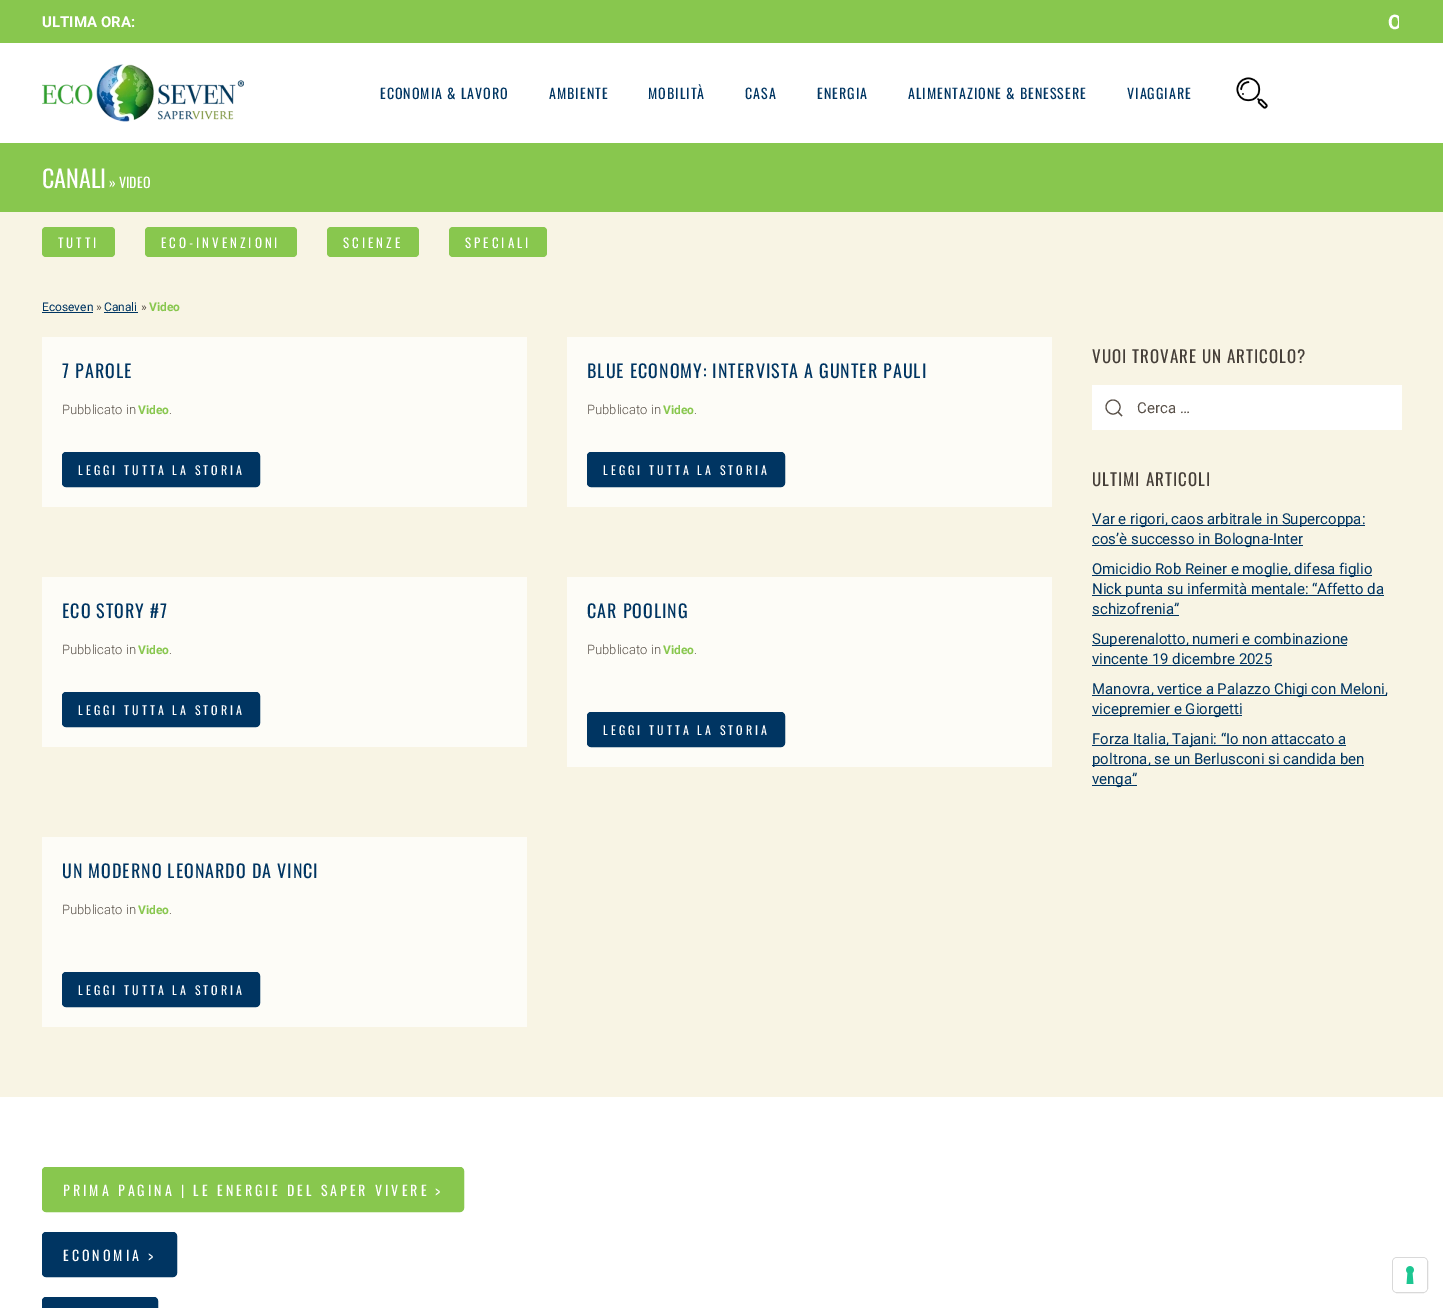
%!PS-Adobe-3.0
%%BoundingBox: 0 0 1443 1308
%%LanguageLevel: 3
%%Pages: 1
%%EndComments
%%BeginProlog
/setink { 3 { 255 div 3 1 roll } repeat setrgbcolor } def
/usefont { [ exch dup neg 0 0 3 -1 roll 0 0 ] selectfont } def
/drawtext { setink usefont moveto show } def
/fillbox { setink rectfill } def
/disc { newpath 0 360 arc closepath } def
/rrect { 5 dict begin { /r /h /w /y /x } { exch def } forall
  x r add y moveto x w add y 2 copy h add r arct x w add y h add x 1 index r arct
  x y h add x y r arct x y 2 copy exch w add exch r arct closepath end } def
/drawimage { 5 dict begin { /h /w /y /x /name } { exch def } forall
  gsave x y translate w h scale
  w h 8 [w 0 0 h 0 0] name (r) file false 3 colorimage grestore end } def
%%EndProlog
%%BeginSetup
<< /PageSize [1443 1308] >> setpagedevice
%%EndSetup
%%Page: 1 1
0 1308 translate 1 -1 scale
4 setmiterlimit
0 0 1443 1308 136 199 78 fillbox
(ULTIMA ORA:) 42 27 /Roboto-Bold 15 255 255 255 drawtext
gsave
144 12 1255 20 rectclip
(O) 1388 29 /Roboto-Bold 20 255 255 255 drawtext
grestore
0 43 1443 100 255 255 255 fillbox
(assets/img1.rgb) 42 64 202 58 drawimage
/Oswald-Regular 14 usefont
0 53 98 setink
380 99 moveto 1 0 (ECONOMIA & LAVORO) ashow
549 99 moveto 1 0 (AMBIENTE) ashow
648 99 moveto 1 0 (MOBILITÀ) ashow
745 99 moveto 1 0 (CASA) ashow
817 99 moveto 1 0 (ENERGIA) ashow
908 99 moveto 1 0 (ALIMENTAZIONE & BENESSERE) ashow
1127 99 moveto 1 0 (VIAGGIARE) ashow
(assets/img2.rgb) 1236 77 32 32 drawimage
(CANALI) 42 188 /Oswald-Regular 24 255 255 255 drawtext
(» VIDEO) 109 188 /Oswald-Regular 14 255 255 255 drawtext
0 212 1443 885 248 244 228 fillbox
136 199 78 setink
42 227 73 30 4 rrect fill
/Oswald-Regular 13 usefont
255 255 255 setink
58 248 moveto 3 0 (TUTTI) ashow
136 199 78 setink
145 227 152 30 4 rrect fill
255 255 255 setink
161 248 moveto 3 0 (ECO-INVENZIONI) ashow
136 199 78 setink
327 227 92 30 4 rrect fill
255 255 255 setink
343 248 moveto 3 0 (SCIENZE) ashow
136 199 78 setink
449 227 98 30 4 rrect fill
255 255 255 setink
465 248 moveto 3 0 (SPECIALI) ashow
(Ecoseven) 42 311 /Roboto-Regular 12 0 53 98 drawtext
42 312 51 1 0 53 98 fillbox
(») 96 311 /Roboto-Regular 12 89 81 73 drawtext
(Canali) 104 311 /Roboto-Regular 12 0 53 98 drawtext
104 312 34 1 0 53 98 fillbox
(») 141 311 /Roboto-Regular 12 89 81 73 drawtext
(Video) 149 311 /Roboto-Bold 12 136 199 78 drawtext
42 337 485 170 253 252 247 fillbox
/Oswald-Regular 18 usefont
0 53 98 setink
62 378 moveto 1 0 (7 PAROLE) ashow
(Pubblicato in) 62 414 /Roboto-Light 13 89 81 73 drawtext
(Video) 138 414 /Roboto-Bold 12 136 199 78 drawtext
(.) 169 414 /Roboto-Light 13 89 81 73 drawtext
0 53 98 setink
62.5 452.5 197 34 3.5 rrect gsave fill grestore
stroke
/Oswald-Regular 12 usefont
255 255 255 setink
78 475 moveto 3 0 (LEGGI TUTTA LA STORIA) ashow
567 337 485 170 253 252 247 fillbox
/Oswald-Regular 18 usefont
0 53 98 setink
587 378 moveto 1 0 (BLUE ECONOMY: INTERVISTA A GUNTER PAULI) ashow
(Pubblicato in) 587 414 /Roboto-Light 13 89 81 73 drawtext
(Video) 663 414 /Roboto-Bold 12 136 199 78 drawtext
(.) 694 414 /Roboto-Light 13 89 81 73 drawtext
0 53 98 setink
587.5 452.5 197 34 3.5 rrect gsave fill grestore
stroke
/Oswald-Regular 12 usefont
255 255 255 setink
603 475 moveto 3 0 (LEGGI TUTTA LA STORIA) ashow
42 577 485 170 253 252 247 fillbox
/Oswald-Regular 18 usefont
0 53 98 setink
62 618 moveto 1 0 (ECO STORY #7) ashow
(Pubblicato in) 62 654 /Roboto-Light 13 89 81 73 drawtext
(Video) 138 654 /Roboto-Bold 12 136 199 78 drawtext
(.) 169 654 /Roboto-Light 13 89 81 73 drawtext
0 53 98 setink
62.5 692.5 197 34 3.5 rrect gsave fill grestore
stroke
/Oswald-Regular 12 usefont
255 255 255 setink
78 715 moveto 3 0 (LEGGI TUTTA LA STORIA) ashow
567 577 485 190 253 252 247 fillbox
/Oswald-Regular 18 usefont
0 53 98 setink
587 618 moveto 1 0 (CAR POOLING) ashow
(Pubblicato in) 587 654 /Roboto-Light 13 89 81 73 drawtext
(Video) 663 654 /Roboto-Bold 12 136 199 78 drawtext
(.) 694 654 /Roboto-Light 13 89 81 73 drawtext
0 53 98 setink
587.5 712.5 197 34 3.5 rrect gsave fill grestore
stroke
/Oswald-Regular 12 usefont
255 255 255 setink
603 735 moveto 3 0 (LEGGI TUTTA LA STORIA) ashow
42 837 485 190 253 252 247 fillbox
/Oswald-Regular 18 usefont
0 53 98 setink
62 878 moveto 1 0 (UN MODERNO LEONARDO DA VINCI) ashow
(Pubblicato in) 62 914 /Roboto-Light 13 89 81 73 drawtext
(Video) 138 914 /Roboto-Bold 12 136 199 78 drawtext
(.) 169 914 /Roboto-Light 13 89 81 73 drawtext
0 53 98 setink
62.5 972.5 197 34 3.5 rrect gsave fill grestore
stroke
/Oswald-Regular 12 usefont
255 255 255 setink
78 995 moveto 3 0 (LEGGI TUTTA LA STORIA) ashow
/Oswald-Regular 17 usefont
69 62 56 setink
1092 363 moveto 1 0 (VUOI TROVARE UN ARTICOLO?) ashow
1092 385 310 45 255 255 255 fillbox
89 81 73 setink
1.1 setlinewidth
1113 407 7 disc stroke
1118 412 moveto 1122 416 lineto closepath stroke
(Cerca …) 1137 413 /Roboto-Regular 15 89 81 73 drawtext
/Oswald-Regular 17 usefont
69 62 56 setink
1092 486 moveto 1 0 (ULTIMI ARTICOLI) ashow
1092 525 273 1 0 53 98 fillbox
(Var e rigori, caos arbitrale in Supercoppa:) 1092 524 /Roboto-Regular 15 0 53 98 drawtext
1092 545 211 1 0 53 98 fillbox
(cos’è successo in Bologna-Inter) 1092 544 /Roboto-Regular 15 0 53 98 drawtext
1092 575 280 1 0 53 98 fillbox
(Omicidio Rob Reiner e moglie, difesa figlio) 1092 574 /Roboto-Regular 15 0 53 98 drawtext
1092 595 292 1 0 53 98 fillbox
(Nick punta su infermità mentale: “Affetto da) 1092 594 /Roboto-Regular 15 0 53 98 drawtext
(schizofrenia”) 1092 614 /Roboto-Regular 15 0 53 98 drawtext
1092 615 87 1 0 53 98 fillbox
1092 645 255 1 0 53 98 fillbox
(Superenalotto, numeri e combinazione) 1092 644 /Roboto-Regular 15 0 53 98 drawtext
(vincente 19 dicembre 2025) 1092 664 /Roboto-Regular 15 0 53 98 drawtext
1092 665 180 1 0 53 98 fillbox
1092 695 295 1 0 53 98 fillbox
(Manovra, vertice a Palazzo Chigi con Meloni,) 1092 694 /Roboto-Regular 15 0 53 98 drawtext
1092 715 150 1 0 53 98 fillbox
(vicepremier e Giorgetti) 1092 714 /Roboto-Regular 15 0 53 98 drawtext
1092 745 254 1 0 53 98 fillbox
(Forza Italia, Tajani: “Io non attaccato a) 1092 744 /Roboto-Regular 15 0 53 98 drawtext
1092 765 272 1 0 53 98 fillbox
(poltrona, se un Berlusconi si candida ben) 1092 764 /Roboto-Regular 15 0 53 98 drawtext
1092 785 45 1 0 53 98 fillbox
(venga”) 1092 784 /Roboto-Regular 15 0 53 98 drawtext
0 1097 1443 211 255 255 255 fillbox
136 199 78 setink
42.5 1167.5 421 44 3.5 rrect gsave fill grestore
1 setlinewidth
stroke
/Oswald-Regular 14 usefont
255 255 255 setink
63 1196 moveto 3 0 (PRIMA PAGINA | LE ENERGIE DEL SAPER VIVERE >) ashow
0 53 98 setink
42.5 1232.5 134 44 3.5 rrect gsave fill grestore
stroke
255 255 255 setink
63 1261 moveto 3 0 (ECONOMIA >) ashow
0 53 98 setink
42.5 1297.5 115 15 3.5 rrect gsave fill grestore
stroke
217 217 217 setink
1392.5 1257.5 35 35 4.5 rrect stroke
255 255 255 setink
1393 1258 34 34 4 rrect fill
(assets/img3.rgb) 1406 1266 8 18 drawimage
showpage
%%EOF
